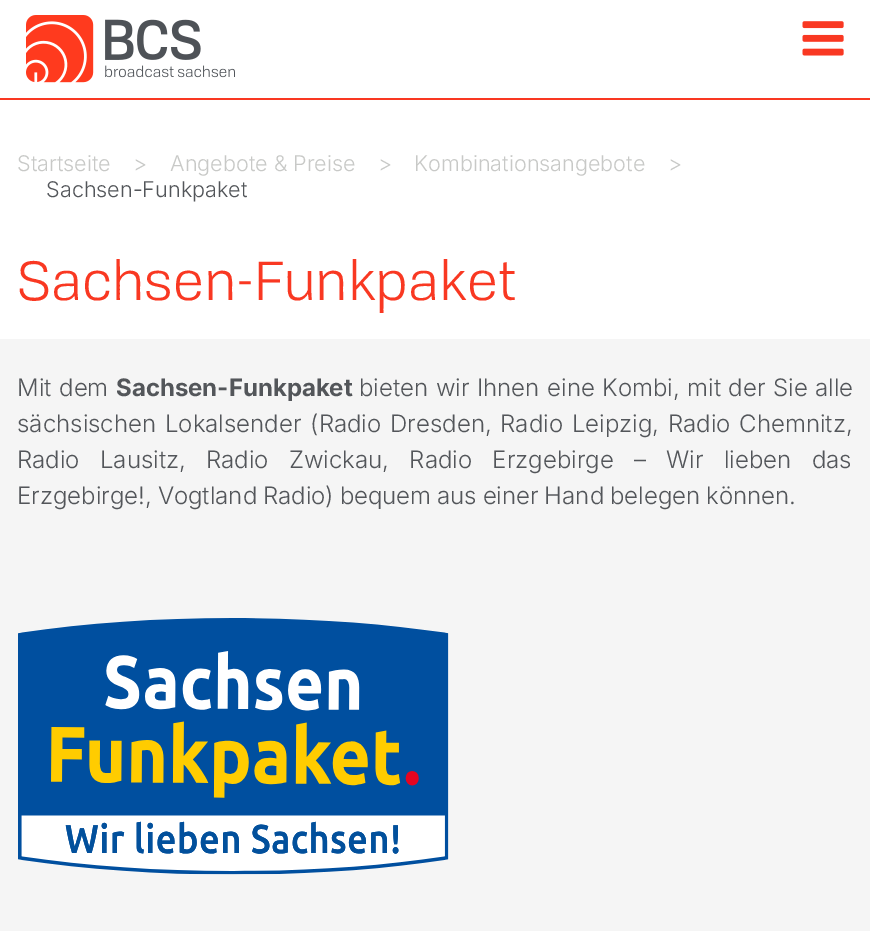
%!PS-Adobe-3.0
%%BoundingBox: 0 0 870 931
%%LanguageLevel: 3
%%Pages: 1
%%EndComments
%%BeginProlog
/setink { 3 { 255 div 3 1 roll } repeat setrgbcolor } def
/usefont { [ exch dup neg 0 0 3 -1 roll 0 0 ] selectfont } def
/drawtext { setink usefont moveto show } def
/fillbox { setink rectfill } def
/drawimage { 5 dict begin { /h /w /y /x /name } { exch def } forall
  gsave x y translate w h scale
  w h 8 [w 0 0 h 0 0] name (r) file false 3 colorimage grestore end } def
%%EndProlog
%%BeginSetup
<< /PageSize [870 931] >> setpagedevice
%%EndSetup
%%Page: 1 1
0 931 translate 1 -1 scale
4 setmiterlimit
0 0 870 931 255 255 255 fillbox
0 98 870 2 249 56 34 fillbox
(assets/img1.rgb) 26 15 209 68 drawimage
(assets/img2.rgb) 802 21 42 35 drawimage
(Startseite) 17 171 /Inter-Light 21.6 200 201 199 drawtext
(>) 133 171 /Inter-Light 21.6 200 201 199 drawtext
(Angebote & Preise) 170 171 /Inter-Light 21.6 200 201 199 drawtext
(>) 378 171 /Inter-Light 21.6 200 201 199 drawtext
(Kombinationsangebote) 414 171 /Inter-Light 21.6 200 201 199 drawtext
(>) 668 171 /Inter-Light 21.6 200 201 199 drawtext
(Sachsen-Funkpaket) 46 197 /Inter-Light 21.6 83 86 90 drawtext
(Sachsen-Funkpaket) 17 300 /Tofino-Regular 54 249 56 34 drawtext
0 339 870 592 245 245 245 fillbox
/Inter-Light 24 usefont
83 86 90 setink
17 396 moveto 1 0 32 (Mit dem) widthshow
(Sachsen-Funkpaket) 116 396 /Inter-Bold 24 83 86 90 drawtext
/Inter-Light 24 usefont
359 396 moveto 0.75 0 32 (bieten wir Ihnen eine Kombi, mit der Sie alle) widthshow
17 432 moveto 2 0 32 (sächsischen Lokalsender \(Radio Dresden, Radio Leipzig, Radio Chemnitz,) widthshow
17 468 moveto 13.5 0 32 (Radio Lausitz, Radio Zwickau, Radio Erzgebirge – Wir lieben das) widthshow
17 504 moveto -1 0 32 (Erzgebirge!, Vogtland Radio\) bequem aus einer Hand belegen können.) widthshow
(assets/img3.rgb) 18 618 431 257 drawimage
showpage
%%EOF
